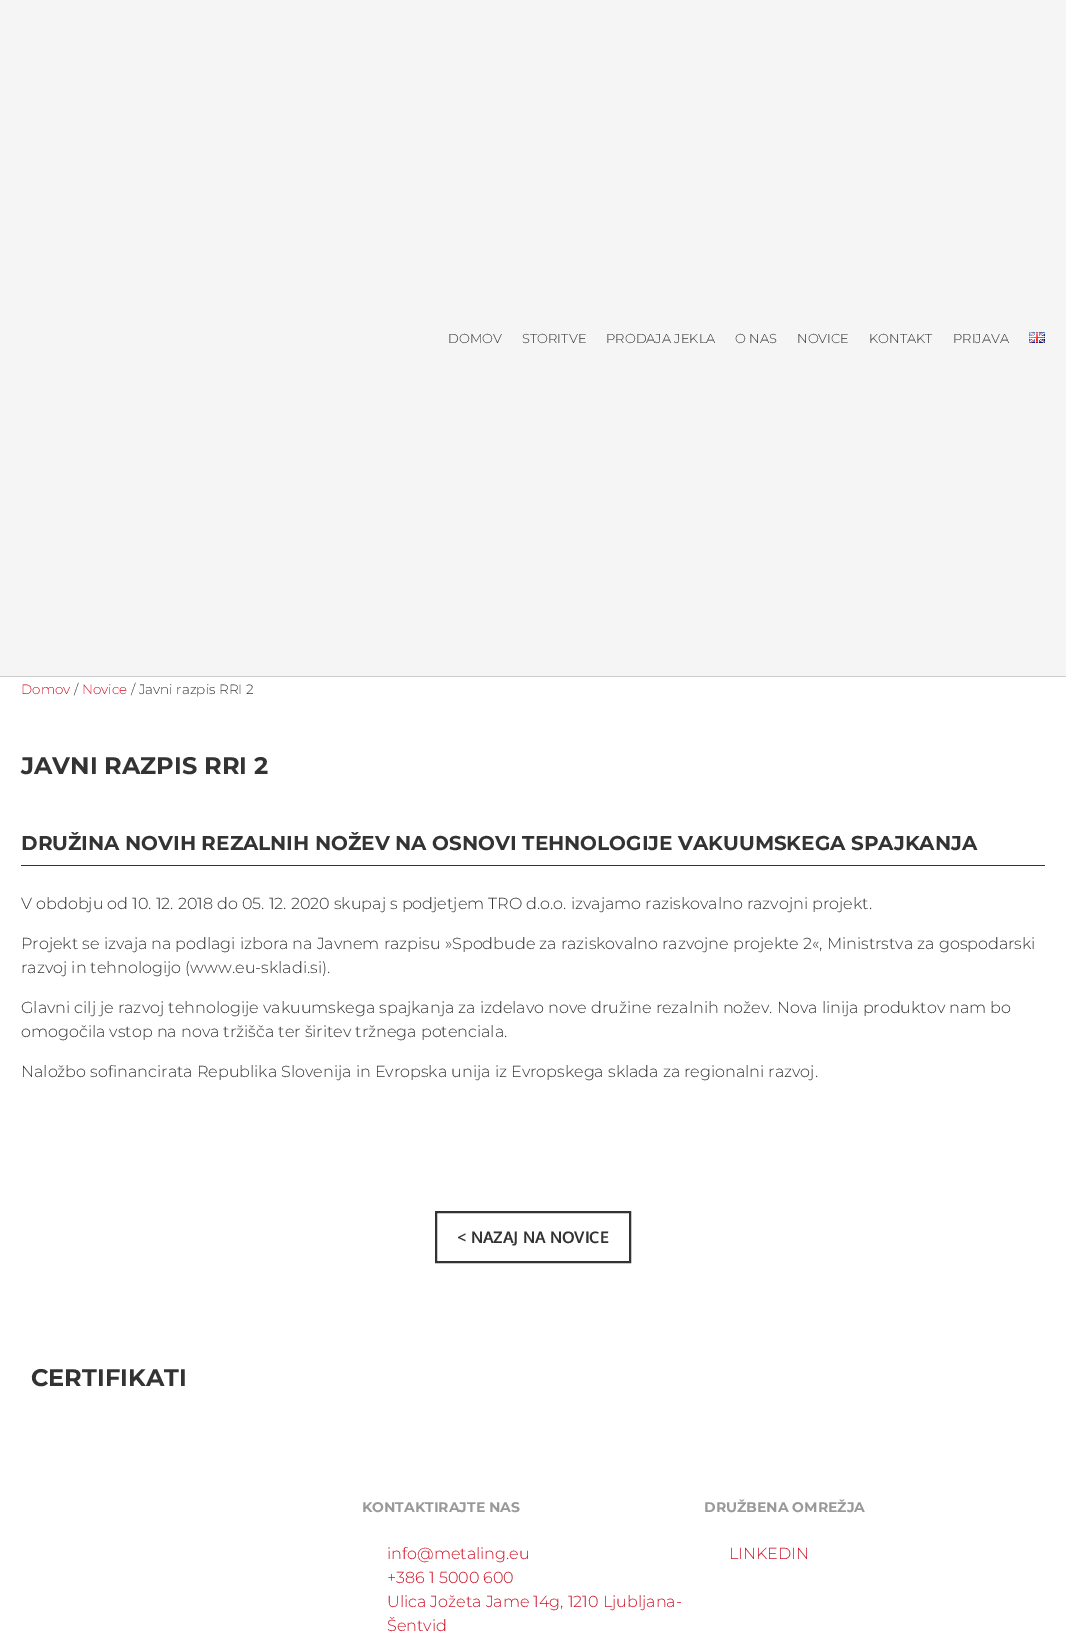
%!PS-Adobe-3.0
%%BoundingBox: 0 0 1066 1646
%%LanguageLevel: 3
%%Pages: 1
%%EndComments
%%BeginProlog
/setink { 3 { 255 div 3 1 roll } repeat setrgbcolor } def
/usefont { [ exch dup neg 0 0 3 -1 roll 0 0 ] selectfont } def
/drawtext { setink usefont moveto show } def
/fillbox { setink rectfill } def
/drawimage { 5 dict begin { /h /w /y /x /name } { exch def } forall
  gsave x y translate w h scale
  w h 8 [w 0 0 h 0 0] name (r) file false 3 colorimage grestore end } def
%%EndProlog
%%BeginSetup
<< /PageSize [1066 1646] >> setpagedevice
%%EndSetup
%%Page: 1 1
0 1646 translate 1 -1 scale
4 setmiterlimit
0 0 1066 1646 255 255 255 fillbox
0 0 1066 676 245 245 245 fillbox
0 676 1066 1 204 204 204 fillbox
(DOMOV) 448 343 /Montserrat-Light 13 51 51 51 drawtext
(STORITVE) 522 343 /Montserrat-Light 13 51 51 51 drawtext
(PRODAJA JEKLA) 606 343 /Montserrat-Light 13 51 51 51 drawtext
(O NAS) 735 343 /Montserrat-Light 13 51 51 51 drawtext
(NOVICE) 797 343 /Montserrat-Light 13 51 51 51 drawtext
(KONTAKT) 869 343 /Montserrat-Light 13 51 51 51 drawtext
(PRIJAVA) 953 343 /Montserrat-Light 13 51 51 51 drawtext
(assets/img1.rgb) 1029 332 16 11 drawimage
(Domov) 21 694 /Montserrat-Light 13.5 206 17 38 drawtext
(/) 74 694 /Montserrat-Light 13.5 51 51 51 drawtext
(Novice) 82 694 /Montserrat-Light 13.5 206 17 38 drawtext
(/ Javni razpis RRI 2) 131 694 /Montserrat-Light 13.5 51 51 51 drawtext
(JAVNI RAZPIS RRI 2) 21 774 /Montserrat-Bold 24 51 51 51 drawtext
(DRUŽINA NOVIH REZALNIH NOŽEV NA OSNOVI TEHNOLOGIJE VAKUUMSKEGA SPAJKANJA) 21 850 /Montserrat-Bold 20 51 51 51 drawtext
21 865 1024 1 51 51 51 fillbox
(V obdobju od 10. 12. 2018 do 05. 12. 2020 skupaj s podjetjem TRO d.o.o. izvajamo raziskovalno razvojni projekt.) 21 909 /Montserrat-Light 16 51 51 51 drawtext
(Projekt se izvaja na podlagi izbora na Javnem razpisu »Spodbude za raziskovalno razvojne projekte 2«, Ministrstva za gospodarski) 21 949 /Montserrat-Light 16 51 51 51 drawtext
(razvoj in tehnologijo \(www.eu-skladi.si\).) 21 973 /Montserrat-Light 16 51 51 51 drawtext
(Glavni cilj je razvoj tehnologije vakuumskega spajkanja za izdelavo nove družine rezalnih nožev. Nova linija produktov nam bo) 21 1013 /Montserrat-Light 16 51 51 51 drawtext
(omogočila vstop na nova tržišča ter širitev tržnega potenciala.) 21 1037 /Montserrat-Light 16 51 51 51 drawtext
(Naložbo sofinancirata Republika Slovenija in Evropska unija iz Evropskega sklada za regionalni razvoj.) 21 1077 /Montserrat-Light 16 51 51 51 drawtext
2 setlinewidth
436 1212 194 50 rectstroke
(< NAZAJ NA NOVICE) 457 1243 /Oxygen-Bold 16 51 51 51 drawtext
(CERTIFIKATI) 31 1386 /Montserrat-Bold 24 51 51 51 drawtext
(KONTAKTIRAJTE NAS) 362 1512 /Montserrat-Bold 14 153 153 153 drawtext
(info@metaling.eu) 387 1559 /Montserrat-Light 16 206 17 38 drawtext
(+386 1 5000 600) 387 1583 /Montserrat-Light 16 206 17 38 drawtext
(Ulica Jožeta Jame 14g, 1210 Ljubljana-) 387 1607 /Montserrat-Light 16 206 17 38 drawtext
(Šentvid) 387 1631 /Montserrat-Light 16 206 17 38 drawtext
(DRUŽBENA OMREŽJA) 704 1512 /Montserrat-Bold 14 153 153 153 drawtext
(LINKEDIN) 729 1559 /Montserrat-Light 16 206 17 38 drawtext
showpage
%%EOF
